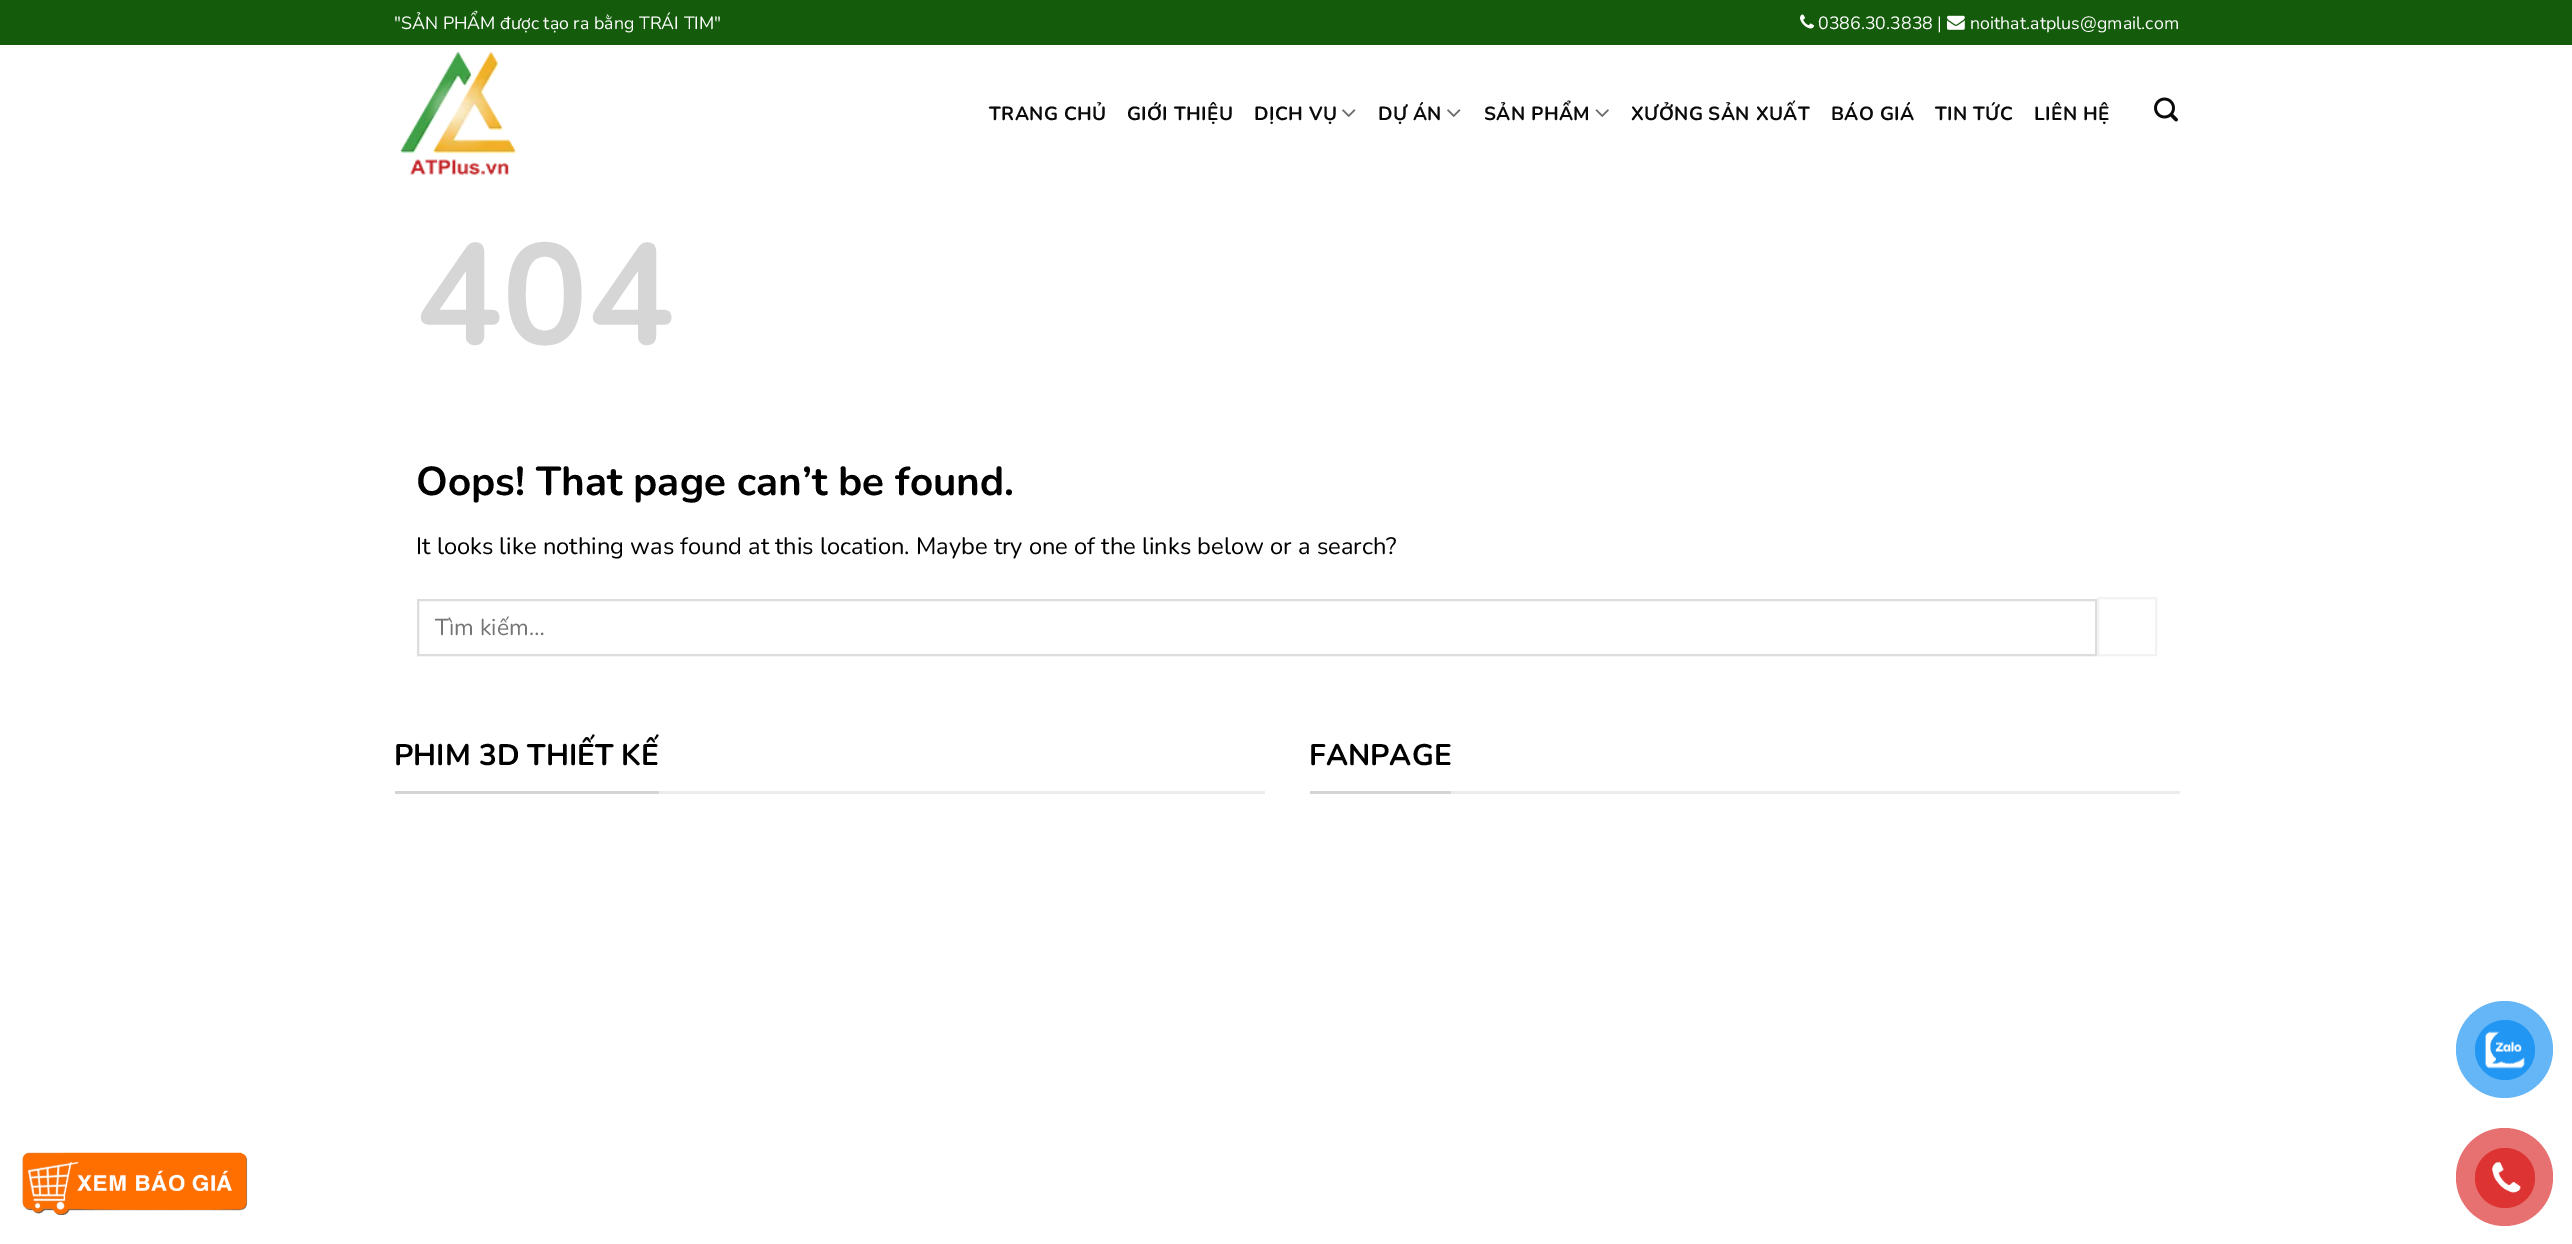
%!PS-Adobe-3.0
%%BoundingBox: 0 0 2572 1244
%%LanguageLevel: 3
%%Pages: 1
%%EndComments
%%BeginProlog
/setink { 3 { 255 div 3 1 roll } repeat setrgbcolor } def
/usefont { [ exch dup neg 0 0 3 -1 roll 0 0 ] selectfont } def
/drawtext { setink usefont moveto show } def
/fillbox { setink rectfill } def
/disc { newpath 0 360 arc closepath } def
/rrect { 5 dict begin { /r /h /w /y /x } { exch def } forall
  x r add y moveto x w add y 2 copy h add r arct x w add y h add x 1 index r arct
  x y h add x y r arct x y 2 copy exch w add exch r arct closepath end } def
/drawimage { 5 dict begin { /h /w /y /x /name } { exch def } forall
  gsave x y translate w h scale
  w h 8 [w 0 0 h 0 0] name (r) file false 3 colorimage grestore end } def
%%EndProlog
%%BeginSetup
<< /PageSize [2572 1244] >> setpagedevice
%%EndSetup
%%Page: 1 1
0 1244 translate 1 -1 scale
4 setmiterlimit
0 0 2572 1244 255 255 255 fillbox
0 0 2572 45 20 91 11 fillbox
("SẢN PHẨM được tạo ra bằng TRÁI TIM") 394 29 /Nunito-Regular 17.8 255 255 255 drawtext
(assets/img1.rgb) 1800 14 14 15 drawimage
(0386.30.3838 |) 1818 29 /Nunito-Regular 17.8 255 255 255 drawtext
(assets/img2.rgb) 1947 15 18 15 drawimage
(noithat.atplus@gmail.com) 1970 29 /Nunito-Regular 17.8 255 255 255 drawtext
(assets/img3.rgb) 400 52 117 123 drawimage
/Nunito-Bold 19 usefont
10 10 10 setink
989 120 moveto 0.4 0 (TRANG CHỦ) ashow
1127 120 moveto 0.4 0 (GIỚI THIỆU) ashow
1254 120 moveto 0.4 0 (DỊCH VỤ) ashow
(assets/img4.rgb) 1342 109 14 8 drawimage
1378 120 moveto 0.4 0 (DỰ ÁN) ashow
(assets/img4.rgb) 1447 109 14 8 drawimage
1484 120 moveto 0.4 0 (SẢN PHẨM) ashow
(assets/img5.rgb) 1595 109 14 8 drawimage
1631 120 moveto 0.4 0 (XƯỞNG SẢN XUẤT) ashow
1831 120 moveto 0.4 0 (BÁO GIÁ) ashow
1935 120 moveto 0.4 0 (TIN TỨC) ashow
2034 120 moveto 0.4 0 (LIÊN HỆ) ashow
(assets/img6.rgb) 2154 97 24 25 drawimage
(404) 416 344 /Nunito-Bold 143 214 214 214 drawtext
(Oops! That page can’t be found.) 416 495 /Nunito-Bold 40.4 0 0 0 drawtext
(It looks like nothing was found at this location. Maybe try one of the links below or a search?) 416 554 /Nunito-Regular 23.75 0 0 0 drawtext
221 221 221 setink
2 setlinewidth
418 600 1678 55 rectstroke
(Tìm kiếm…) 435 635 /Nunito-Regular 23 117 117 117 drawtext
242 242 242 setink
2098 598 58 57 rectstroke
659 791 606 3 236 236 236 fillbox
395 791 264 3 212 212 212 fillbox
(PHIM 3D THIẾT KẾ) 394 765 /Nunito-Bold 29.75 0 0 0 drawtext
1451 791 729 3 236 236 236 fillbox
1310 791 141 3 212 212 212 fillbox
(FANPAGE) 1309 765 /Nunito-Bold 29.75 0 0 0 drawtext
(assets/img7.rgb) 22 1152 226 63 drawimage
100 182 247 setink
2504.5 1049.5 48.5 disc fill
33 150 243 setink
2505 1050 30 disc fill
(assets/img8.rgb) 2485 1031 40 38 drawimage
231 112 112 setink
2456 1128 97 98 48.5 rrect fill
221 51 51 setink
2505 1178 30 disc fill
(assets/img9.rgb) 2492 1161 29 32 drawimage
showpage
%%EOF
